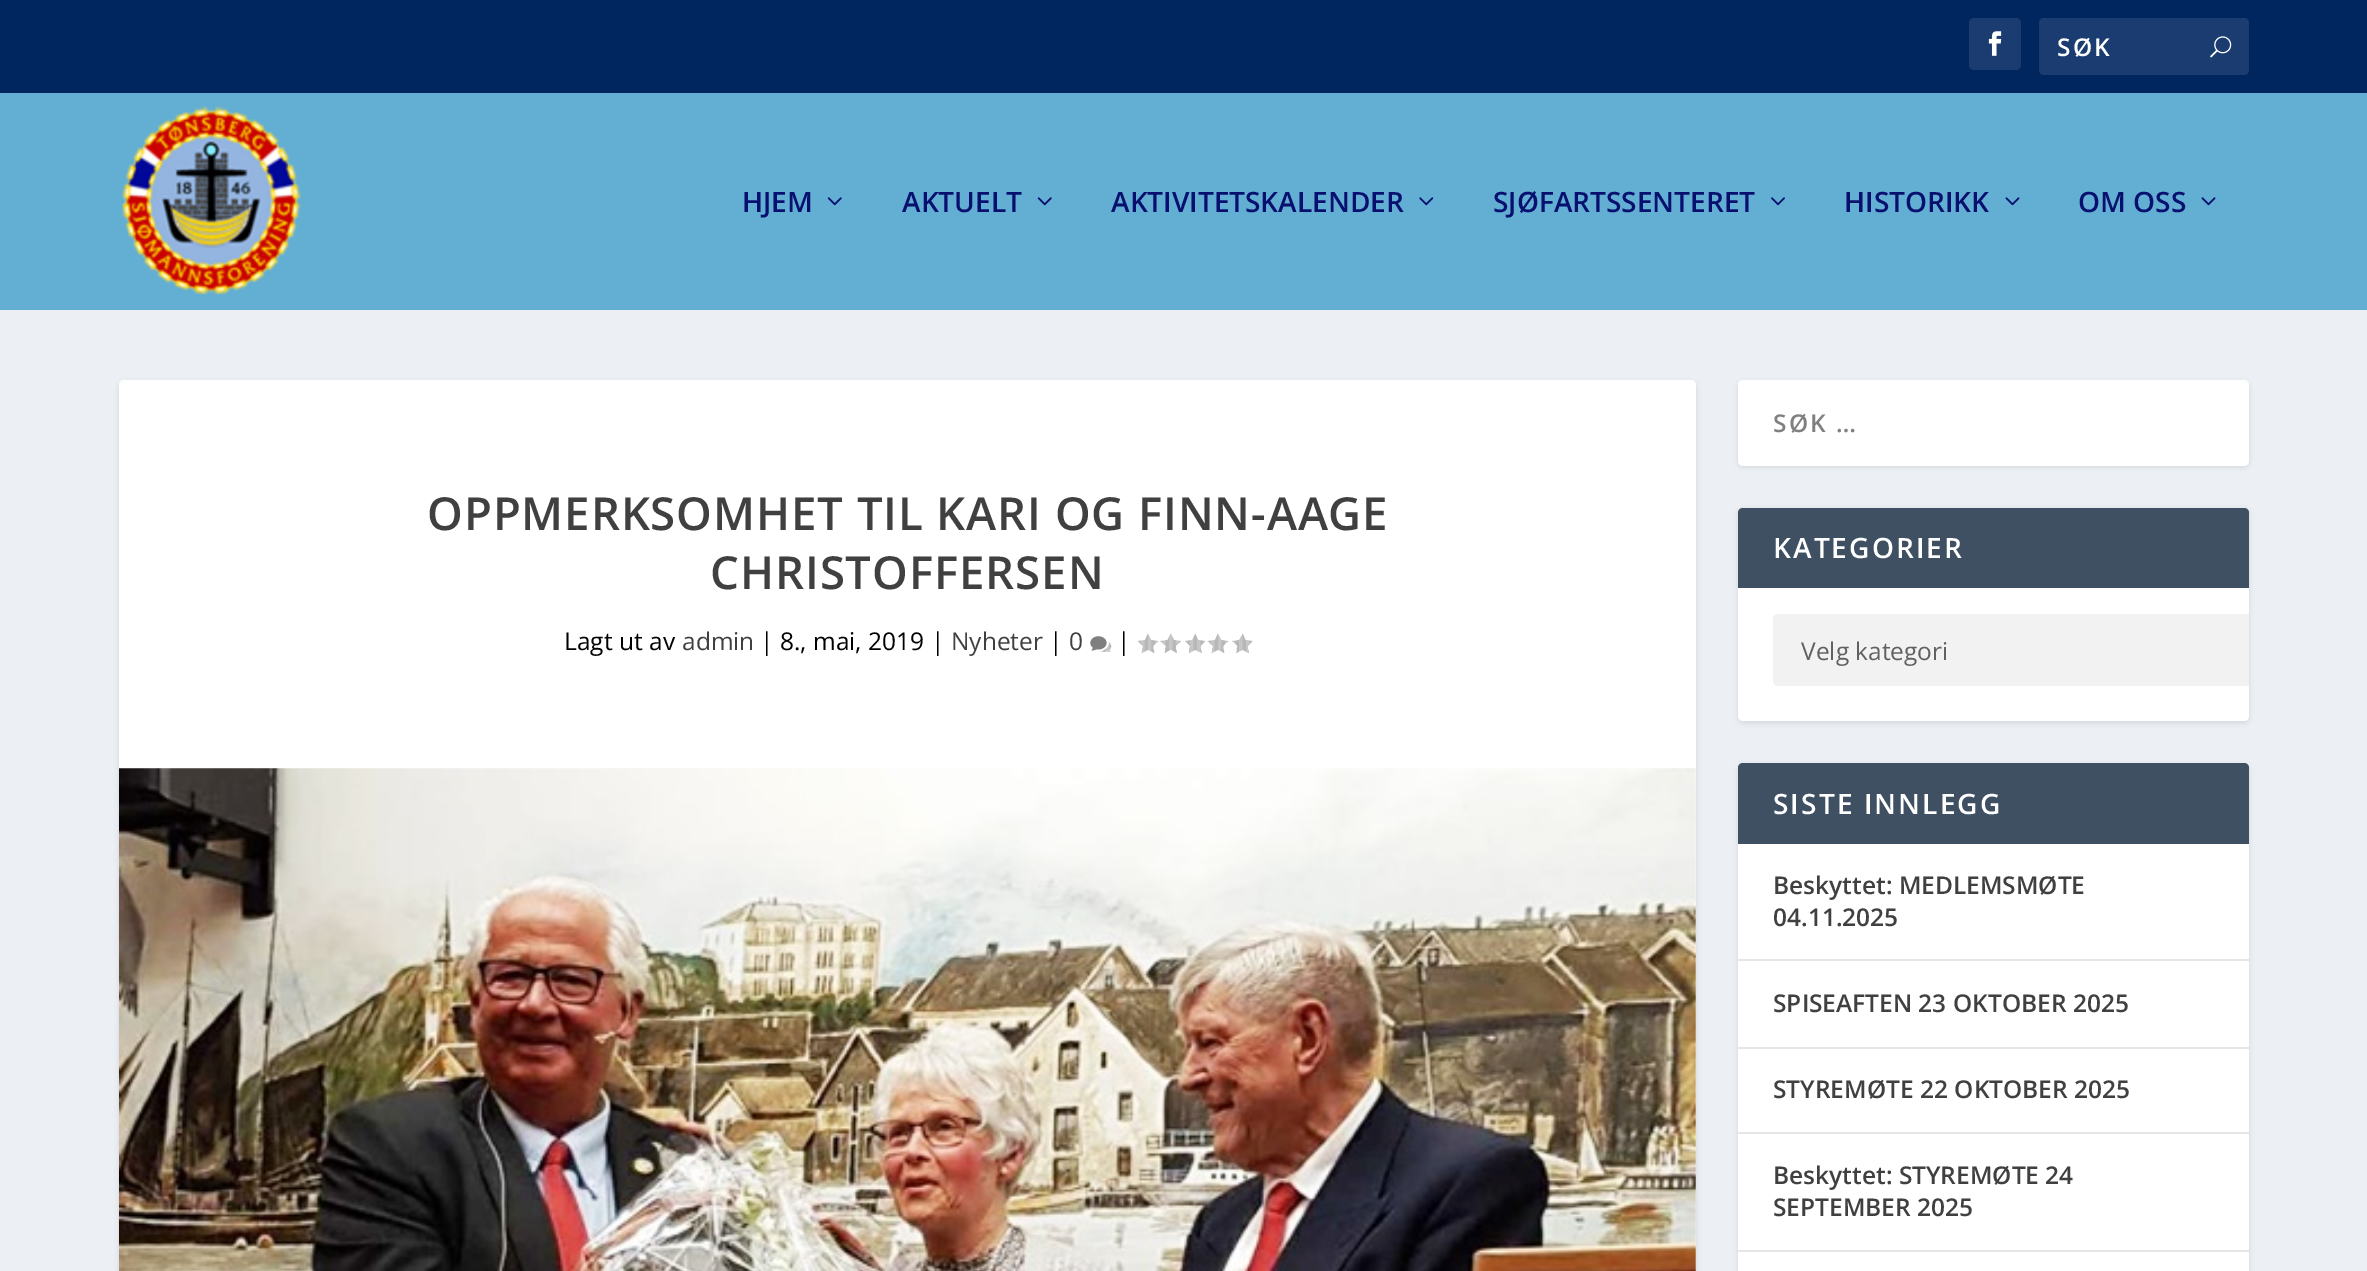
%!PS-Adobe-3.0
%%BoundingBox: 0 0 2367 1271
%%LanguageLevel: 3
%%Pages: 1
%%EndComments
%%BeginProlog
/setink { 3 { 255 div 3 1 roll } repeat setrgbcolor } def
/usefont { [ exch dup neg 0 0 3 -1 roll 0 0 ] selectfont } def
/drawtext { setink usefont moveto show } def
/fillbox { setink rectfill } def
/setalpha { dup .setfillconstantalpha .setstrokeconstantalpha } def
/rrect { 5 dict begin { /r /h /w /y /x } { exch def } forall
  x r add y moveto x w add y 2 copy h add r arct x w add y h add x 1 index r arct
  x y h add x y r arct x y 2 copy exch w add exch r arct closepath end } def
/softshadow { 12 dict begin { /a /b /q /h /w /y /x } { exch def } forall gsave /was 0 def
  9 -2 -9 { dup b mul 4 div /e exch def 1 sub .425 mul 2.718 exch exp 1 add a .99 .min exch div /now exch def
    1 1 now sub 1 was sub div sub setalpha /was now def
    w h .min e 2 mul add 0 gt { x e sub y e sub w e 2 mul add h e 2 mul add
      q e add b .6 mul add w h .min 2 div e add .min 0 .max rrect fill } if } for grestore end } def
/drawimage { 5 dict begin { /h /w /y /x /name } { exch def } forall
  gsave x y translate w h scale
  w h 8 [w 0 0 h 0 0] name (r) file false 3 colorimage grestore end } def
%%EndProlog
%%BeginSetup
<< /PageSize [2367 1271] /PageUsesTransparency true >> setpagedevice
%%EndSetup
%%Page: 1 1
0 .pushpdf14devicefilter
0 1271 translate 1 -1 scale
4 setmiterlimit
0 0 2367 1271 236 240 245 fillbox
0 0 2367 93 0 38 96 fillbox
26 60 112 setink
1969 18 52 52 5 rrect fill
(assets/img1.rgb) 1988 31 14 25 drawimage
2039 18 210 57 5 rrect fill
/OpenSans-SemiBold 24.5 usefont
255 255 255 setink
2057 56 moveto 2.1 0 (SØK) ashow
(assets/img2.rgb) 2210 36 22 22 drawimage
0 93 2367 217 99 174 211 fillbox
(assets/img3.rgb) 122 106 180 189 drawimage
(HJEM) 742 212 /OpenSans-SemiBold 28 7 15 111 drawtext
(assets/img4.rgb) 827 197 15 9 drawimage
(AKTUELT) 902 212 /OpenSans-SemiBold 28 7 15 111 drawtext
(assets/img4.rgb) 1037 197 15 9 drawimage
(AKTIVITETSKALENDER) 1111 212 /OpenSans-SemiBold 28 7 15 111 drawtext
(assets/img5.rgb) 1419 197 15 9 drawimage
(SJØFARTSSENTERET) 1493 212 /OpenSans-SemiBold 28 7 15 111 drawtext
(assets/img6.rgb) 1771 197 14 9 drawimage
(HISTORIKK) 1844 212 /OpenSans-SemiBold 28 7 15 111 drawtext
(assets/img7.rgb) 2005 197 15 9 drawimage
(OM OSS) 2078 212 /OpenSans-SemiBold 28 7 15 111 drawtext
(assets/img7.rgb) 2201 197 15 9 drawimage
0 0 0 setink
119 382 1577 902 5 2.5 0.1 softshadow
255 255 255 setink
119 380 1577 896 5 rrect fill
/OpenSans-SemiBold 45.5 usefont
64 64 64 setink
427 530 moveto 0.9 0 (OPPMERKSOMHET TIL KARI OG FINN-AAGE) ashow
710 589 moveto 0.9 0 (CHRISTOFFERSEN) ashow
(Lagt ut av) 564 650 /OpenSans-Regular 24.5 0 0 0 drawtext
(admin) 682 650 /OpenSans-Regular 24.5 64 64 64 drawtext
(| 8., mai, 2019 |) 760 650 /OpenSans-Regular 24.5 0 0 0 drawtext
(Nyheter) 951 650 /OpenSans-Regular 24.5 64 64 64 drawtext
(|) 1049 650 /OpenSans-Regular 24.5 0 0 0 drawtext
(0) 1069 650 /OpenSans-Regular 24.5 64 64 64 drawtext
(assets/img8.rgb) 1090 636 22 16 drawimage
(|) 1117 650 /OpenSans-Regular 24.5 0 0 0 drawtext
(assets/img9.rgb) 1137 633 22 21 drawimage
(assets/img10.rgb) 1160 633 21 21 drawimage
(assets/img11.rgb) 1185 633 21 21 drawimage
(assets/img9.rgb) 1207 633 22 21 drawimage
(assets/img12.rgb) 1232 633 21 21 drawimage
(assets/img13.rgb) 119 768 1577 503 drawimage
1738 382 511 85 5 2.5 0.1 softshadow
255 255 255 setink
1738 380 511 86 5 rrect fill
/OpenSans-SemiBold 24.5 usefont
128 128 128 setink
1773 432 moveto 2.1 0 (SØK …) ashow
0 0 0 setink
1738 509 511 214 5 2.5 0.1 softshadow
255 255 255 setink
1738 508 511 213 5 rrect fill
62 80 98 setink
1743 508 moveto 2244 508 lineto 2247 508 2249 510 2249 513 curveto 2249 588 lineto 1738 588 lineto 1738 513 lineto 1738 510 1740 508 1743 508 curveto closepath fill
/OpenSans-SemiBold 28 usefont
255 255 255 setink
1773 558 moveto 2.1 0 (KATEGORIER) ashow
242 242 242 setink
1778 614 moveto 2249 614 lineto 2249 686 lineto 1778 686 lineto 1775 686 1773 684 1773 681 curveto 1773 619 lineto 1773 616 1775 614 1778 614 curveto closepath fill
(Velg kategori) 1801 660 /OpenSans-Regular 24.5 97 97 97 drawtext
0 0 0 setink
1738 765 511 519 5 2.5 0.1 softshadow
255 255 255 setink
1738 763 511 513 5 rrect fill
62 80 98 setink
1743 763 moveto 2244 763 lineto 2247 763 2249 765 2249 768 curveto 2249 844 lineto 1738 844 lineto 1738 768 lineto 1738 765 1740 763 1743 763 curveto closepath fill
/OpenSans-SemiBold 28 usefont
255 255 255 setink
1773 814 moveto 2.1 0 (SISTE INNLEGG) ashow
1738 959 511 2 230 230 230 fillbox
(Beskyttet: MEDLEMSMØTE) 1773 894 /OpenSans-SemiBold 24.5 64 64 64 drawtext
(04.11.2025) 1773 926 /OpenSans-SemiBold 24.5 64 64 64 drawtext
1738 1047 511 2 230 230 230 fillbox
(SPISEAFTEN 23 OKTOBER 2025) 1773 1012 /OpenSans-SemiBold 24.5 64 64 64 drawtext
1738 1132 511 2 230 230 230 fillbox
(STYREMØTE 22 OKTOBER 2025) 1773 1098 /OpenSans-SemiBold 24.5 64 64 64 drawtext
1738 1250 511 2 230 230 230 fillbox
(Beskyttet: STYREMØTE 24) 1773 1184 /OpenSans-SemiBold 24.5 64 64 64 drawtext
(SEPTEMBER 2025) 1773 1216 /OpenSans-SemiBold 24.5 64 64 64 drawtext
.poppdf14devicefilter showpage
%%EOF
